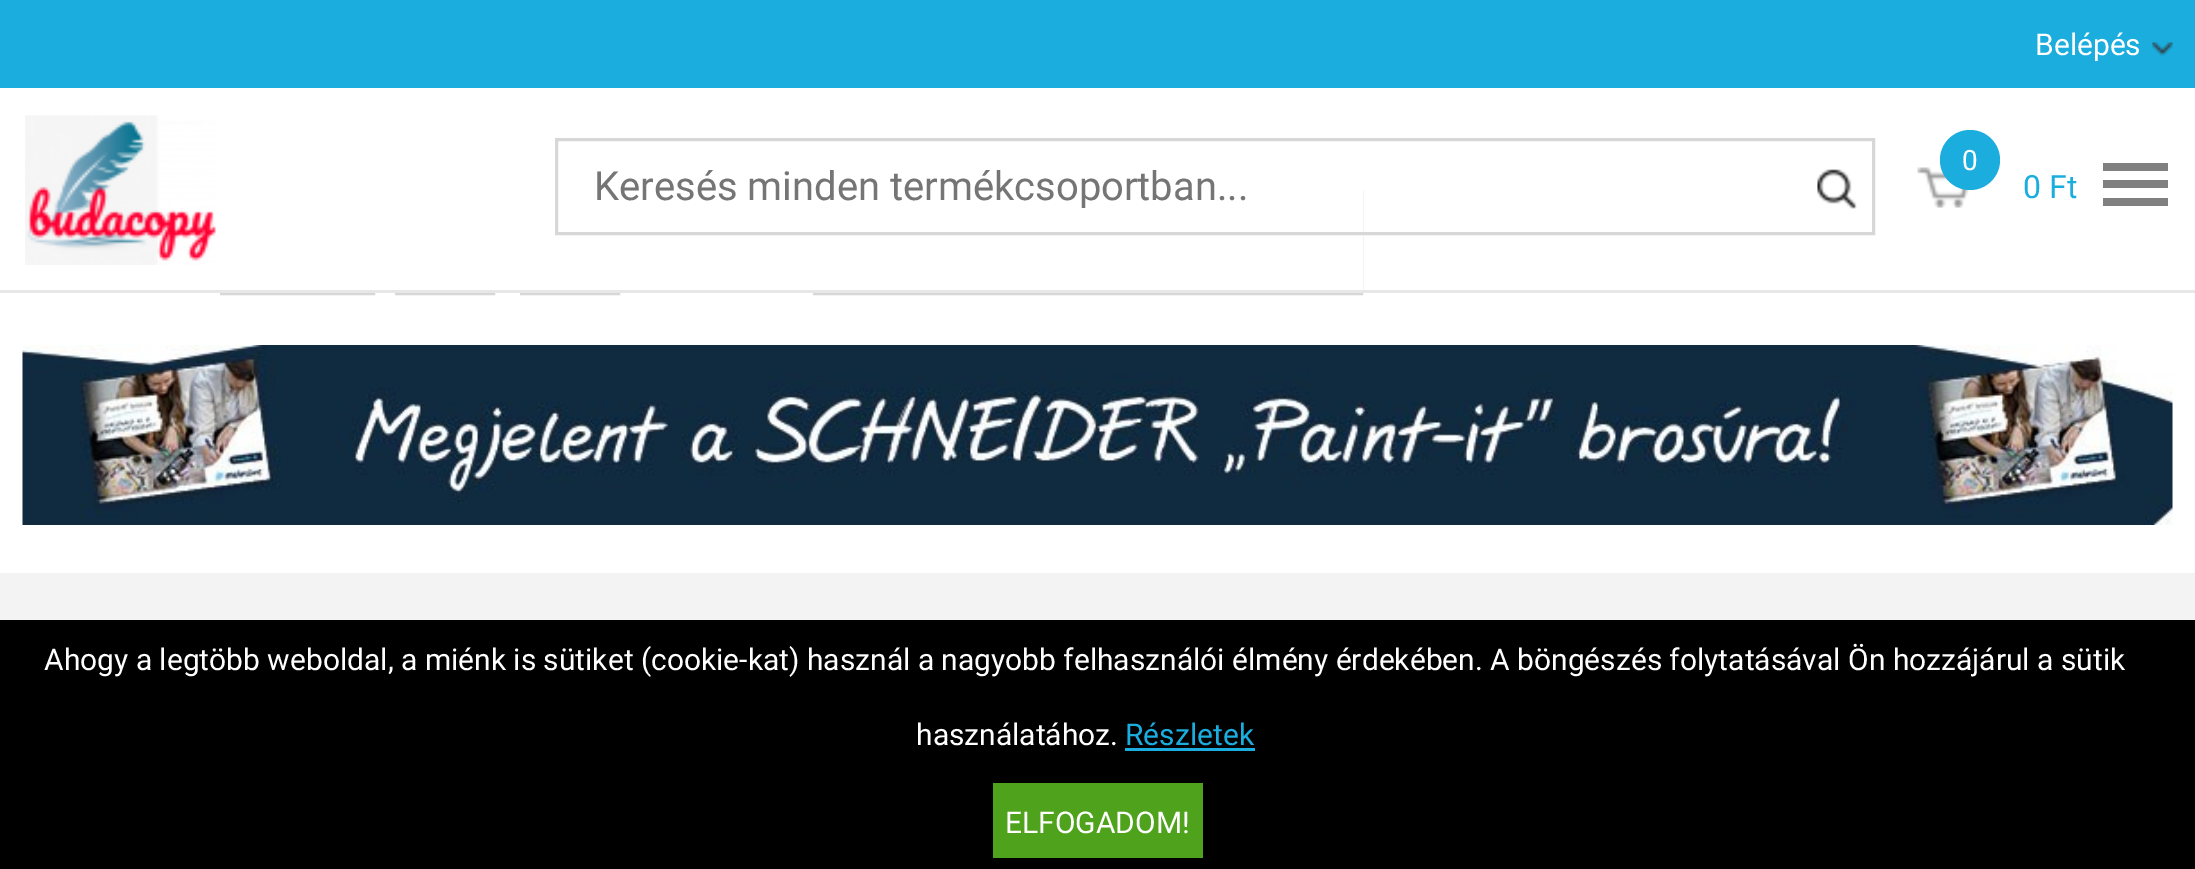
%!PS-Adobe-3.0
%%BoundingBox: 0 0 2195 869
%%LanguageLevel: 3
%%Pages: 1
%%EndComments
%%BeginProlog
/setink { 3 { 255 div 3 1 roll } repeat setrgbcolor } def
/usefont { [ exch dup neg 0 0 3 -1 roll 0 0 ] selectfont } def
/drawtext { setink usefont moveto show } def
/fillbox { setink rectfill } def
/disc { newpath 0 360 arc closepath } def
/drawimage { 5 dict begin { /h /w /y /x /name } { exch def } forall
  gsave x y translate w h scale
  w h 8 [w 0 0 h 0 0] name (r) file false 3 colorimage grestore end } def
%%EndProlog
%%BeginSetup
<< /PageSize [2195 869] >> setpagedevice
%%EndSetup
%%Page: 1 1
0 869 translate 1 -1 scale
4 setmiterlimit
0 0 2195 869 255 255 255 fillbox
0 0 2195 88 26 173 222 fillbox
(Belépés) 2035 55 /Roboto-Regular 30 255 255 255 drawtext
(assets/img1.rgb) 2152 42 21 14 drawimage
215 215 215 setink
3 setlinewidth
221.5 191.5 152 102 rectstroke
396.5 191.5 97 102 rectstroke
521.5 191.5 97 102 rectstroke
814.5 191.5 547 102 rectstroke
220 190 1143 100 255 255 255 fillbox
0 290 2195 3 231 231 231 fillbox
(assets/img2.rgb) 25 115 191 150 drawimage
215 215 215 setink
556.5 139.5 1317 94 rectstroke
(Keresés minden termékcsoportban...) 594 200 /Roboto-Regular 40 117 117 117 drawtext
(assets/img3.rgb) 1817 169 40 40 drawimage
(assets/img4.rgb) 1917 167 52 41 drawimage
26 173 222 setink
1970 160 30 disc fill
(0) 1962 170 /Roboto-Regular 28 255 255 255 drawtext
(0 Ft) 2023 198 /Roboto-Regular 32 26 173 222 drawtext
2103 163 65 8 128 128 128 fillbox
2103 180 65 8 128 128 128 fillbox
2103 198 65 8 128 128 128 fillbox
(assets/img5.rgb) 22 345 2151 180 drawimage
0 573 2195 47 243 243 243 fillbox
0 620 2195 249 0 0 0 fillbox
(Ahogy a legtöbb weboldal, a miénk is sütiket \(cookie-kat\) használ a nagyobb felhasználói élmény érdekében. A böngészés folytatásával Ön hozzájárul a sütik) 44 670 /Roboto-Regular 30 255 255 255 drawtext
(használatához.) 916 745 /Roboto-Regular 30 255 255 255 drawtext
(Részletek) 1125 745 /Roboto-Regular 30 26 173 222 drawtext
1125 748 130 3 26 173 222 fillbox
993 783 210 75 79 163 28 fillbox
(ELFOGADOM!) 1005 833 /Roboto-Regular 30 255 255 255 drawtext
showpage
%%EOF
